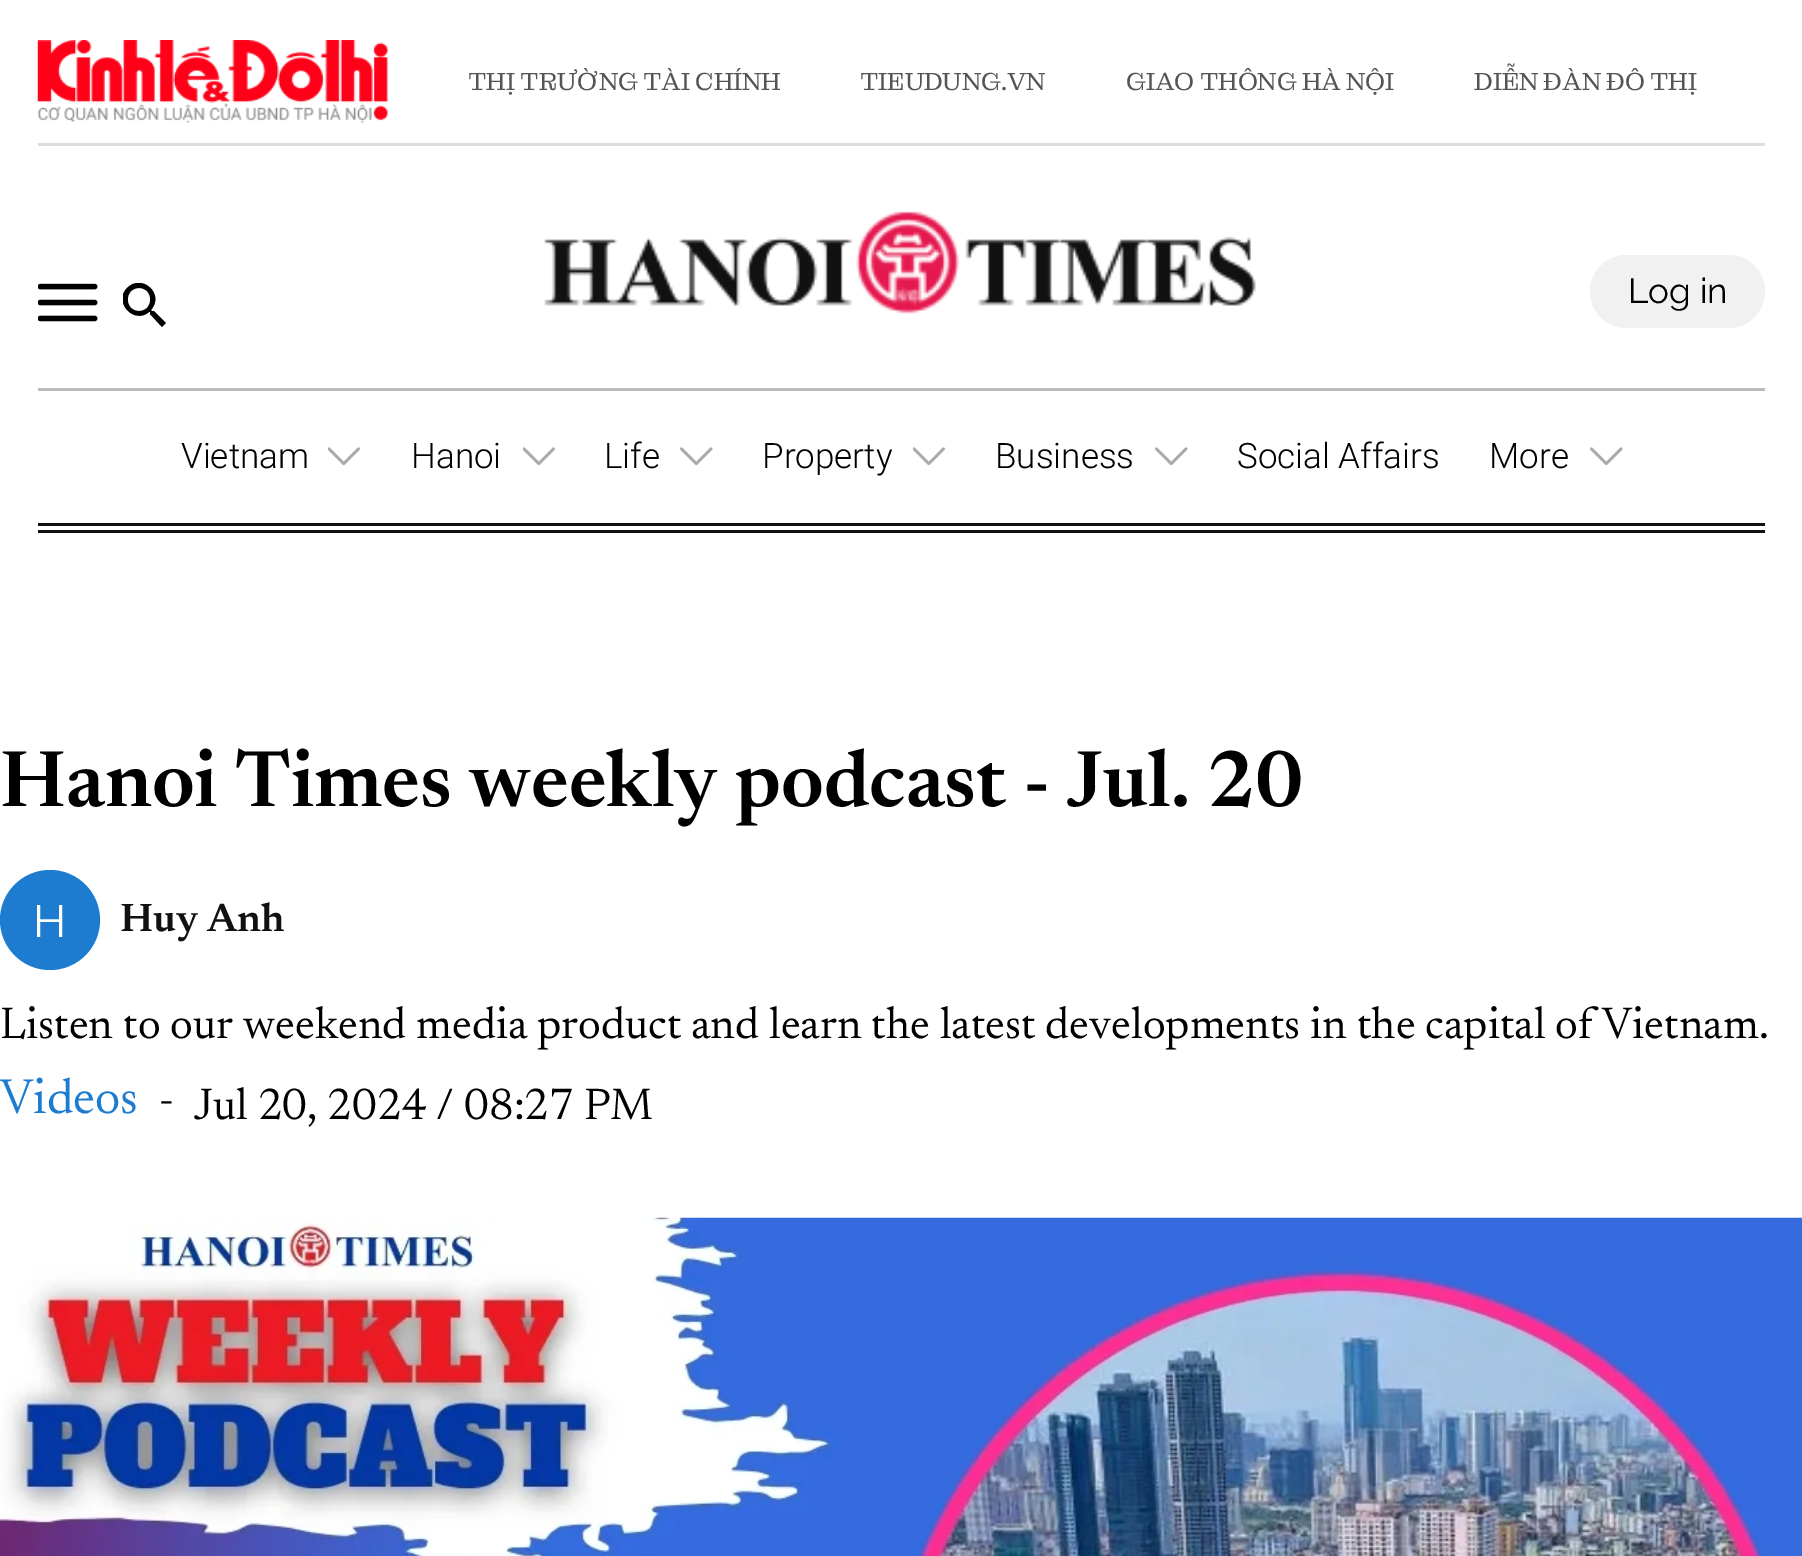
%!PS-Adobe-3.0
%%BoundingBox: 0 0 1802 1556
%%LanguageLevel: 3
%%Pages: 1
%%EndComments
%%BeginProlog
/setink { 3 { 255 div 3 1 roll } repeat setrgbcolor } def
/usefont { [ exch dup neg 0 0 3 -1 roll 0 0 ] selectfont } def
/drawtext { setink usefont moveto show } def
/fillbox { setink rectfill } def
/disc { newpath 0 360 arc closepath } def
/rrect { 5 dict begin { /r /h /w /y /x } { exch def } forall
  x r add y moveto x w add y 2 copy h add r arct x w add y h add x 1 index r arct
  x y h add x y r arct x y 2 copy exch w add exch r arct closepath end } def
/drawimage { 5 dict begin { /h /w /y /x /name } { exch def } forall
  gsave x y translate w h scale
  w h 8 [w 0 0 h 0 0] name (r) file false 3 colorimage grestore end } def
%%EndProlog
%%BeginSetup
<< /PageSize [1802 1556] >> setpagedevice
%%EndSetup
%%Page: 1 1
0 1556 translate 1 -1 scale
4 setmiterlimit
0 0 1802 1556 255 255 255 fillbox
38 143 1727 3 221 221 221 fillbox
(assets/img1.rgb) 37 40 351 83 drawimage
(THỊ TRƯỜNG TÀI CHÍNH) 468 90 /MontaguSlab-Regular 25 85 85 85 drawtext
(TIEUDUNG.VN) 860 90 /MontaguSlab-Regular 25 85 85 85 drawtext
(GIAO THÔNG HÀ NỘI) 1126 90 /MontaguSlab-Regular 25 85 85 85 drawtext
(DIỄN ĐÀN ĐÔ THỊ) 1474 90 /MontaguSlab-Regular 25 85 85 85 drawtext
(assets/img2.rgb) 38 283 60 39 drawimage
gsave
123 283 45 45 rectclip
0 0 0 setink
154 311 moveto 152 311 lineto 151 310 lineto 165 294 142 273 127 288 curveto 113 302 134 325 149 312 curveto 150 312 lineto 150 314 lineto 162 327 lineto 166 323 lineto closepath 139 311 moveto 124 311 124 288 139 288 curveto 154 288 154 311 139 311 curveto closepath fill
grestore
(assets/img3.rgb) 544 211 712 103 drawimage
241 241 241 setink
1590 255 175 73 36.5 rrect fill
(Log in) 1628 303 /Raleway-Thin 35 0 0 0 drawtext
38 388 1727 3 187 187 187 fillbox
38 523 1727 3 17 17 17 fillbox
(Vietnam) 181 468 /Roboto-Light 35 0 0 0 drawtext
(assets/img4.rgb) 328 447 32 19 drawimage
(Hanoi) 411 468 /Roboto-Light 35 0 0 0 drawtext
(assets/img4.rgb) 523 447 32 19 drawimage
(Life) 604 468 /Roboto-Light 35 0 0 0 drawtext
(assets/img5.rgb) 680 447 33 19 drawimage
(Property) 762 468 /Roboto-Light 35 0 0 0 drawtext
(assets/img4.rgb) 913 447 32 19 drawimage
(Business) 995 468 /Roboto-Light 35 0 0 0 drawtext
(assets/img5.rgb) 1155 447 33 19 drawimage
(Social Affairs) 1237 468 /Roboto-Light 35 0 0 0 drawtext
(More) 1489 468 /Roboto-Light 35 0 0 0 drawtext
(assets/img5.rgb) 1590 447 33 19 drawimage
38 530 1727 3 17 17 17 fillbox
(Hanoi Times weekly podcast - Jul. 20) 0 806 /Newsreader-SemiBold 80 0 0 0 drawtext
29 124 208 setink
50 920 50 disc fill
(H) 33 937 /Raleway-Thin 45 255 255 255 drawtext
(Huy Anh) 120 931 /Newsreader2-SemiBold 40 17 17 17 drawtext
(Listen to our weekend media product and learn the latest developments in the capital of Vietnam.) 0 1038 /Newsreader-Regular 45 0 0 0 drawtext
(Videos) 0 1113 /Newsreader-Regular 50 29 124 208 drawtext
(-) 159 1112 /Raleway-Thin 35 0 0 0 drawtext
(Jul 20, 2024 / 08:27 PM) 194 1119 /Newsreader-Regular 45 0 0 0 drawtext
(assets/img6.rgb) 0 1217 1802 339 drawimage
showpage
%%EOF
